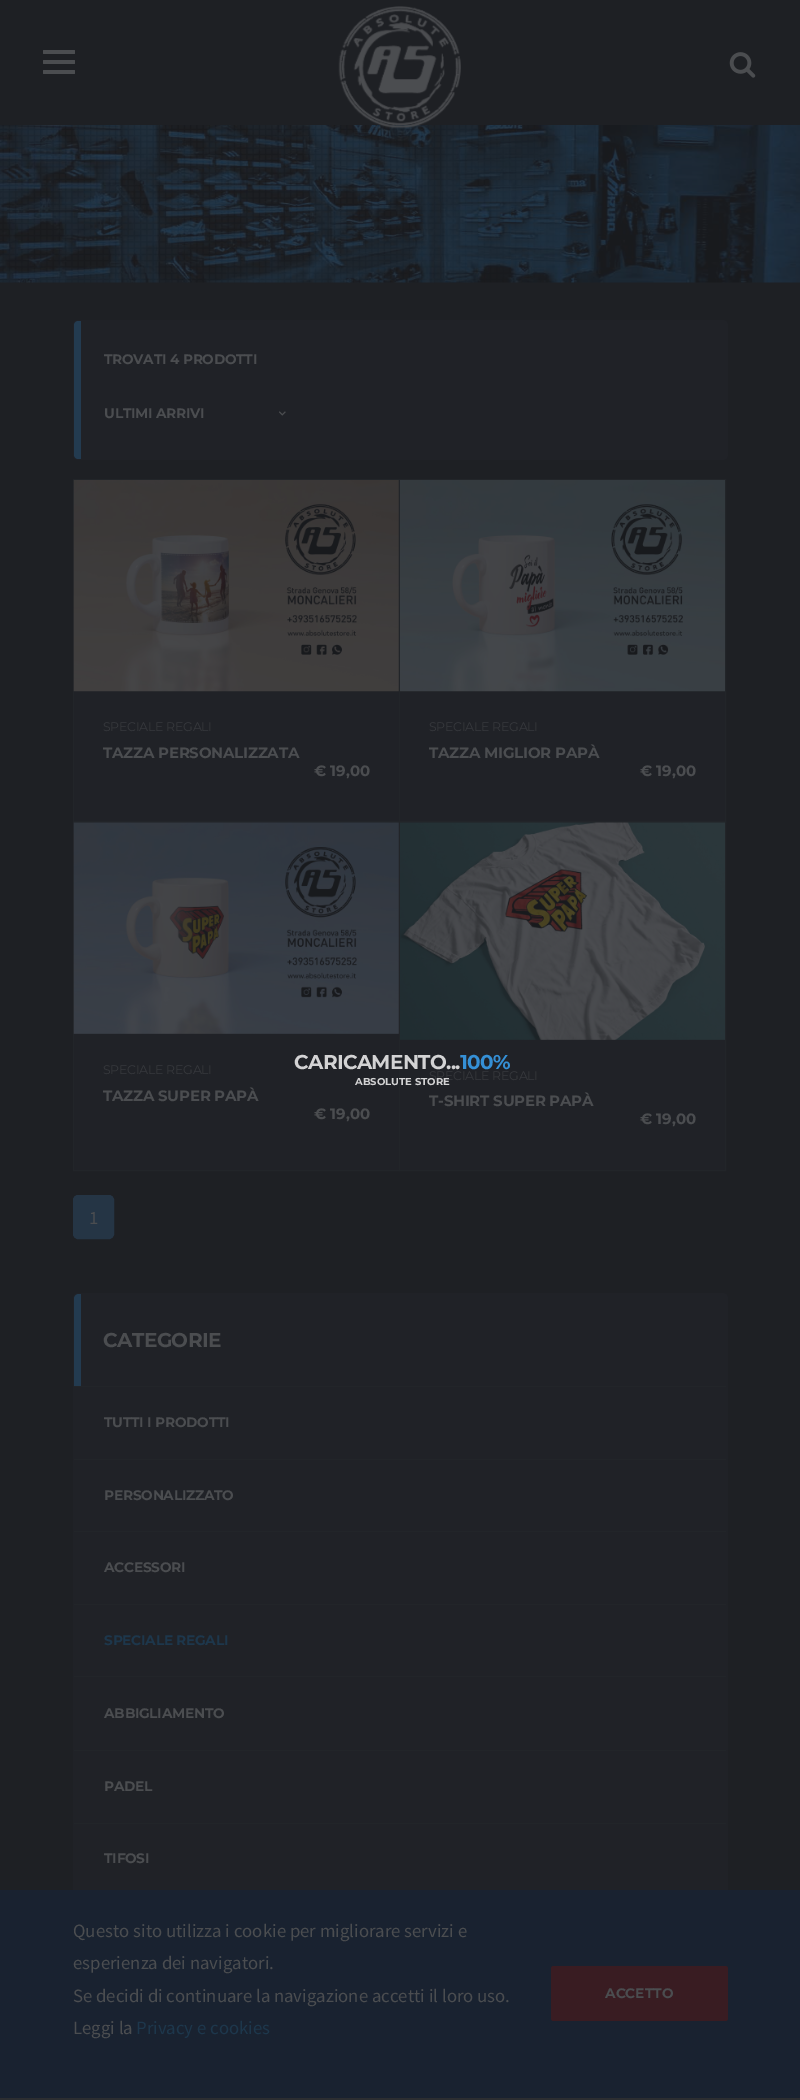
%!PS-Adobe-3.0
%%BoundingBox: 0 0 800 2100
%%LanguageLevel: 3
%%Pages: 1
%%EndComments
%%BeginProlog
/setink { 3 { 255 div 3 1 roll } repeat setrgbcolor } def
/usefont { [ exch dup neg 0 0 3 -1 roll 0 0 ] selectfont } def
/drawtext { setink usefont moveto show } def
/fillbox { setink rectfill } def
/rrect { 5 dict begin { /r /h /w /y /x } { exch def } forall
  x r add y moveto x w add y 2 copy h add r arct x w add y h add x 1 index r arct
  x y h add x y r arct x y 2 copy exch w add exch r arct closepath end } def
/drawimage { 5 dict begin { /h /w /y /x /name } { exch def } forall
  gsave x y translate w h scale
  w h 8 [w 0 0 h 0 0] name (r) file false 3 colorimage grestore end } def
%%EndProlog
%%BeginSetup
<< /PageSize [800 2100] >> setpagedevice
%%EndSetup
%%Page: 1 1
0 2100 translate 1 -1 scale
4 setmiterlimit
0 0 800 2100 30 32 36 fillbox
(assets/img3.rgb) 0 125 800 158 drawimage
(assets/img4.rgb) 0 125 587 158 drawimage
(assets/img1.rgb) 338 6 123 123 drawimage
75 77 80 setink
43 50 32 4 1 rrect fill
43 60 32 4 1 rrect fill
43 70 32 4 1 rrect fill
(assets/img2.rgb) 729 52 27 26 drawimage
32 34 39 setink
73 320 655 140 5 rrect fill
35 59 80 setink
78 321 moveto 81 321 lineto 81 459 lineto 78 459 lineto 76 459 74 457 74 455 curveto 74 325 lineto 74 323 76 321 78 321 curveto closepath fill
/Montserrat-Bold 13.75 usefont
75 77 80 setink
104 364 moveto -0.25 0 (TROVATI 4 PRODOTTI) ashow
(assets/img5.rgb) 279 411 7 5 drawimage
104 418 moveto -0.25 0 (ULTIMI ARRIVI) ashow
74 480 325 341 32 34 39 fillbox
34 37 41 setink
73.5 479.5 326 343 rectstroke
(assets/img6.rgb) 73 480 326 212 drawimage
/Montserrat-Regular 12.5 usefont
55 57 61 setink
103 731 moveto -0.25 0 (SPECIALE REGALI) ashow
/Montserrat-Bold 15 usefont
75 77 80 setink
103 758 moveto -0.25 0 (TAZZA PERSONALIZZATA) ashow
(€ 19,00) 314 776 /Montserrat-Bold 15 75 77 80 drawtext
400 691 325 130 32 34 39 fillbox
34 37 41 setink
399.5 479.5 326 343 rectstroke
(assets/img7.rgb) 400 480 325 212 drawimage
/Montserrat-Regular 12.5 usefont
55 57 61 setink
429 731 moveto -0.25 0 (SPECIALE REGALI) ashow
/Montserrat-Bold 15 usefont
75 77 80 setink
429 758 moveto -0.25 0 (TAZZA MIGLIOR PAPÀ) ashow
(€ 19,00) 640 776 /Montserrat-Bold 15 75 77 80 drawtext
32 34 39 setink
73.5 821.5 moveto 399.5 821.5 lineto 399.5 1170.5 lineto 73.5 1170.5 lineto closepath gsave fill grestore
34 37 41 setink
stroke
(assets/img8.rgb) 73 822 326 212 drawimage
/Montserrat-Regular 12.5 usefont
55 57 61 setink
103 1074 moveto -0.25 0 (SPECIALE REGALI) ashow
/Montserrat-Bold 15 usefont
75 77 80 setink
103 1101 moveto -0.25 0 (TAZZA SUPER PAPÀ) ashow
(€ 19,00) 314 1119 /Montserrat-Bold 15 75 77 80 drawtext
32 34 39 setink
399.5 821.5 moveto 725.5 821.5 lineto 725.5 1170.5 lineto 399.5 1170.5 lineto closepath gsave fill grestore
34 37 41 setink
stroke
(assets/img9.rgb) 400 822 325 218 drawimage
/Montserrat-Regular 12.5 usefont
55 57 61 setink
429 1080 moveto -0.25 0 (SPECIALE REGALI) ashow
/Montserrat-Bold 15 usefont
75 77 80 setink
429 1106 moveto -0.25 0 (T-SHIRT SUPER PAPÀ) ashow
(€ 19,00) 640 1124 /Montserrat-Bold 15 75 77 80 drawtext
37 53 69 setink
73.5 1195.5 40 43 4.5 rrect gsave fill grestore
stroke
(1) 89 1224 /SourceSansPro-Regular 18.75 75 77 80 drawtext
32 34 39 setink
73 1293 655 676 5 rrect fill
74 1386 652 1 34 37 41 fillbox
35 59 80 setink
79 1294 moveto 81 1294 lineto 81 1386 lineto 74 1386 lineto 74 1299 lineto 74 1296 76 1294 79 1294 curveto closepath fill
/Montserrat-Bold 20 usefont
75 77 80 setink
103 1347 moveto -0.5 0 (CATEGORIE) ashow
/Montserrat-Bold 13.75 usefont
104 1427 moveto -0.25 0 (TUTTI I PRODOTTI) ashow
74 1459 652 1 34 37 41 fillbox
75 77 80 setink
104 1500 moveto -0.25 0 (PERSONALIZZATO) ashow
74 1531 652 1 34 37 41 fillbox
75 77 80 setink
104 1572 moveto -0.25 0 (ACCESSORI) ashow
74 1604 652 1 34 37 41 fillbox
29 55 76 setink
104 1645 moveto -0.25 0 (SPECIALE REGALI) ashow
74 1676 652 1 34 37 41 fillbox
75 77 80 setink
104 1718 moveto -0.25 0 (ABBIGLIAMENTO) ashow
74 1750 652 1 34 37 41 fillbox
75 77 80 setink
104 1791 moveto -0.25 0 (PADEL) ashow
74 1823 652 1 34 37 41 fillbox
75 77 80 setink
104 1863 moveto -0.25 0 (TIFOSI) ashow
/Montserrat-Bold 20 usefont
211 211 212 setink
294 1069 moveto -0.6 0 (CARICAMENTO...) ashow
53 144 214 setink
460 1069 moveto -0.6 0 (100%) ashow
(ABSOLUTE STORE) 355 1085 /Montserrat-Bold 10 211 211 212 drawtext
0 1890 800 208 25 34 48 fillbox
0 2098 800 2 44 46 49 fillbox
(Questo sito utilizza i cookie per migliorare servizi e) 73 1937 /SourceSansPro-Regular 18.75 75 77 80 drawtext
(esperienza dei navigatori.) 73 1969 /SourceSansPro-Regular 18.75 75 77 80 drawtext
(Se decidi di continuare la navigazione accetti il loro uso.) 73 2002 /SourceSansPro-Regular 18.75 75 77 80 drawtext
(Leggi la) 73 2034 /SourceSansPro-Regular 18.75 75 77 80 drawtext
(Privacy e cookies) 136 2034 /SourceSansPro-Regular 18.75 29 55 76 drawtext
57 28 34 setink
551 1966 177 55 2.5 rrect fill
(ACCETTO) 605 1998 /Montserrat-Bold 13.75 75 77 80 drawtext
showpage
%%EOF
